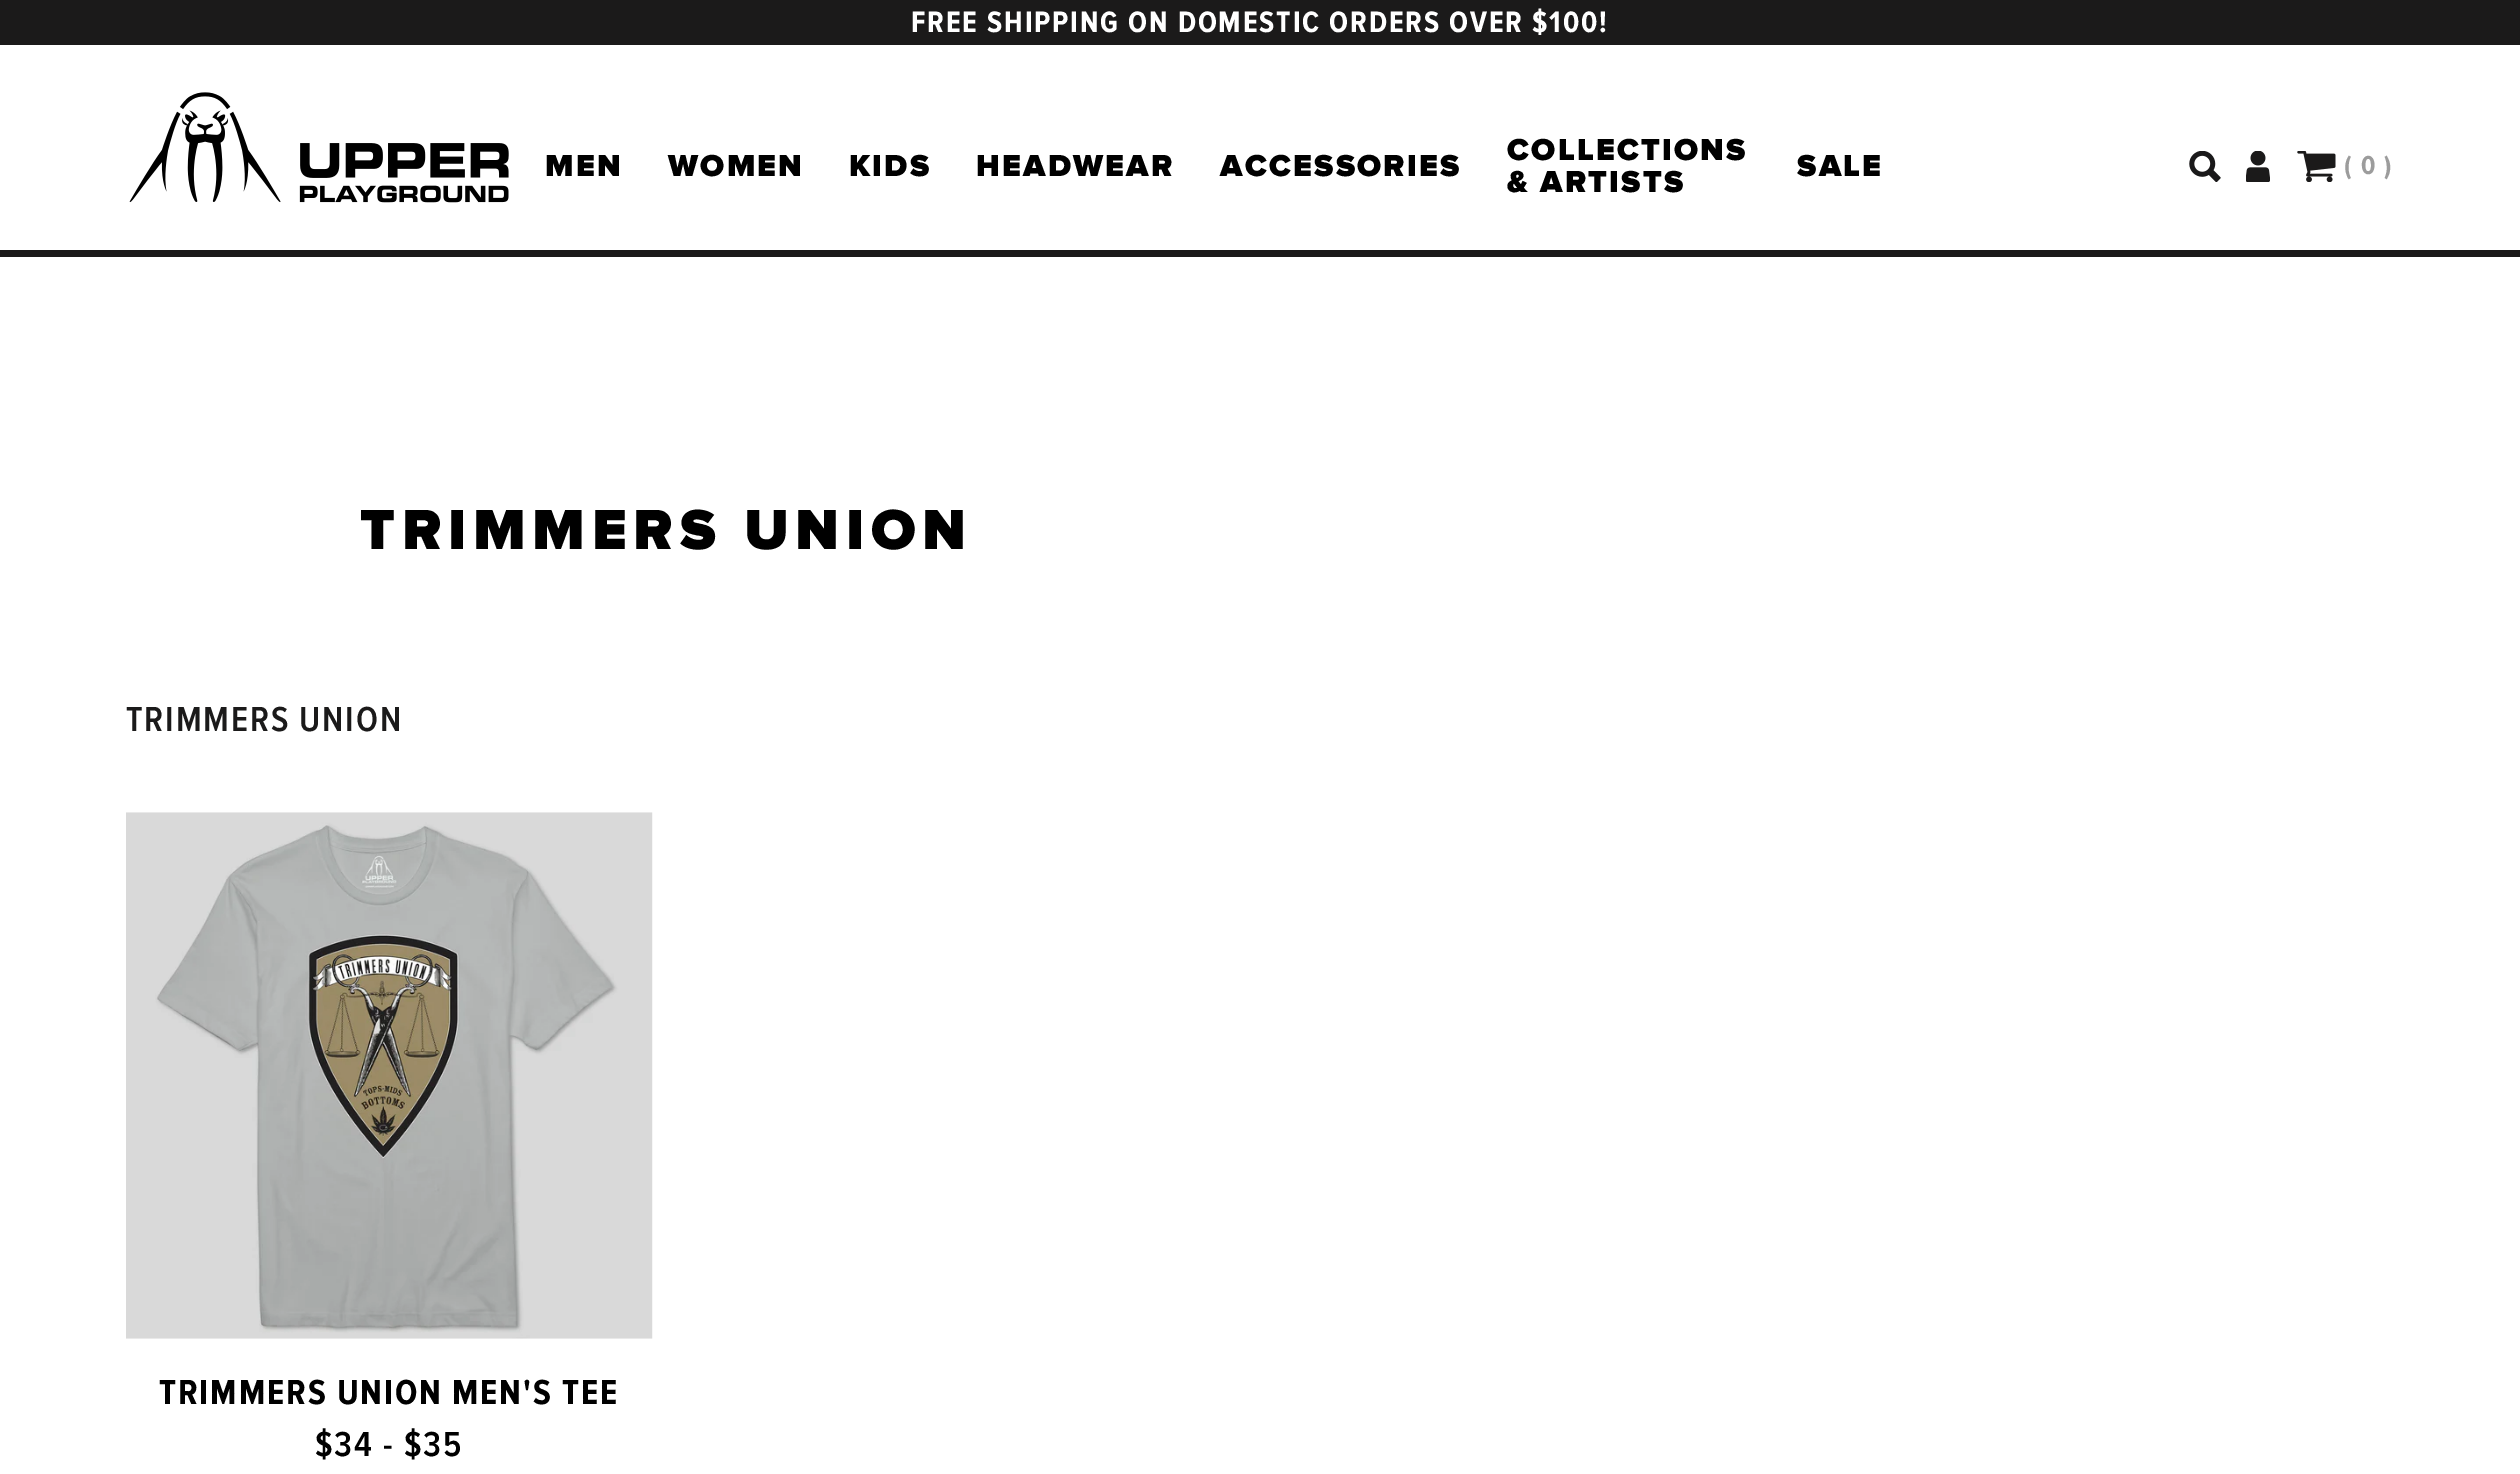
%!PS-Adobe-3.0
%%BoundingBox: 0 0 2520 1474
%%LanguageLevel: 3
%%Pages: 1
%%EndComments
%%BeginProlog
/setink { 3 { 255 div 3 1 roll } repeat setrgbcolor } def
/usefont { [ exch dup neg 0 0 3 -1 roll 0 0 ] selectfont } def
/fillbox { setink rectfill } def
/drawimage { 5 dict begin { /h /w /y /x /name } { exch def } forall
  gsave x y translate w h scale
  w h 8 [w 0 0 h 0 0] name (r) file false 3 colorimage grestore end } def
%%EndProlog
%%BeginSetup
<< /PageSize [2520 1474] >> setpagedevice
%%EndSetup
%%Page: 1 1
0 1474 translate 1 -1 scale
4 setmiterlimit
0 0 2520 1474 255 255 255 fillbox
0 250 2520 7 27 26 26 fillbox
0 0 2520 45 27 26 26 fillbox
/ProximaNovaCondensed-Bold 30.6 usefont
255 255 255 setink
911 32 moveto 1.8 0 (FREE SHIPPING ON DOMESTIC ORDERS OVER $100!) ashow
(assets/img1.rgb) 129 92 380 111 drawimage
/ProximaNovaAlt-Black 31.5 usefont
0 0 0 setink
545 176 moveto 2.25 0 (MEN) ashow
668 176 moveto 2.25 0 (WOMEN) ashow
849 176 moveto 2.25 0 (KIDS) ashow
976 176 moveto 2.25 0 (HEADWEAR) ashow
1220 176 moveto 2.25 0 (ACCESSORIES) ashow
1507 160 moveto 2.25 0 (COLLECTIONS) ashow
1507 192 moveto 2.25 0 (& ARTISTS) ashow
1797 176 moveto 2.25 0 (SALE) ashow
(assets/img2.rgb) 2189 151 32 31 drawimage
(assets/img3.rgb) 2246 151 24 31 drawimage
(assets/img4.rgb) 2297 151 39 31 drawimage
/ProximaNovaCondensed-Bold 27 usefont
156 156 156 setink
2344 174 moveto 1.8 0 (\( 0 \)) ashow
/ProximaNovaAlt-Black 58.5 usefont
0 0 0 setink
360 549 moveto 6.75 0 (TRIMMERS UNION) ashow
/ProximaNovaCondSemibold-SemiBold 36 usefont
27 26 26 setink
126 731 moveto 1.8 0 (TRIMMERS UNION) ashow
(assets/img5.rgb) 126 812 527 527 drawimage
/ProximaNovaCondensed-Bold 36 usefont
0 0 0 setink
159 1404 moveto 1.8 0 (TRIMMERS UNION MEN'S TEE) ashow
/ProximaNovaCondSemibold-SemiBold 36 usefont
315 1456 moveto 1.8 0 ($34 - $35) ashow
showpage
%%EOF
